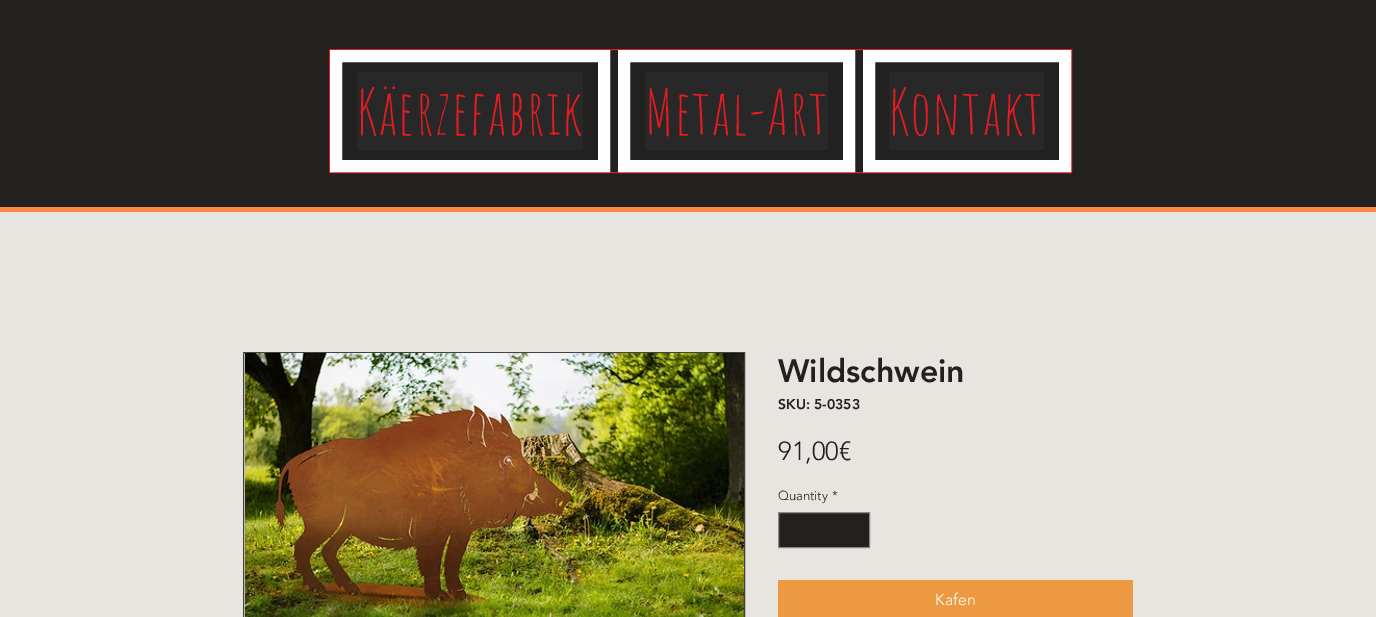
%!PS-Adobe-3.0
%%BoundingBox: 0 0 1376 617
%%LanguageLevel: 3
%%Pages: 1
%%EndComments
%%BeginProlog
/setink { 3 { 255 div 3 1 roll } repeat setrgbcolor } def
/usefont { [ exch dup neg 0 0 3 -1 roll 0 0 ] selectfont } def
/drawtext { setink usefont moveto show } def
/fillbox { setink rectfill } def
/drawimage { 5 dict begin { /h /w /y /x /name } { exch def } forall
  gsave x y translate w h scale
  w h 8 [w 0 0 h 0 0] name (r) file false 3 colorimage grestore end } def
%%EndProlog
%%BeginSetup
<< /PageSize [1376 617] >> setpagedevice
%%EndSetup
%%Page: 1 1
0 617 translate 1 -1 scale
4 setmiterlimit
0 0 1376 617 232 228 223 fillbox
0 0 1376 207 34 33 32 fillbox
0 207 1376 5 255 136 68 fillbox
226 28 33 setink
329.5 49.5 742 123 rectstroke
255 255 255 setink
12 setlinewidth
336 56 268 110 rectstroke
357 72 226 78 40 40 41 fillbox
/AmaticSC-Regular 62 usefont
226 28 33 setink
357 135 moveto 1.25 0 (Käerzefabrik) ashow
255 255 255 setink
624 56 225 110 rectstroke
645 72 183 78 40 40 41 fillbox
226 28 33 setink
645 135 moveto 1.25 0 (Metal-Art) ashow
255 255 255 setink
869 56 196 110 rectstroke
889 72 155 78 40 40 41 fillbox
226 28 33 setink
889 135 moveto 1.25 0 (Kontakt) ashow
67 66 63 setink
1 setlinewidth
243.5 352.5 501 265 rectstroke
(assets/img1.rgb) 245 353 499 264 drawimage
(Wildschwein) 778 382 /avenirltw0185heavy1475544-Black 32 34 33 32 drawtext
(SKU: 5-0353) 778 409 /avenirltw0185heavy1475544-Black 14 34 33 32 drawtext
(91,00€) 778 460 /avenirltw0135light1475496-Light 26 34 33 32 drawtext
(Quantity) 778 500 /avenirltw0135light1475496-Light 13 34 33 32 drawtext
(*) 832 500 /avenirltw0135light1475496-Light 13 34 33 32 drawtext
778.5 512.5 moveto 869.5 512.5 lineto 869.5 547.5 lineto 778.5 547.5 lineto closepath gsave fill grestore
138 137 136 setink
stroke
778 580 355 37 237 153 66 fillbox
(Kafen) 935 605 /avenirltw0135light1475496-Light 16 255 255 255 drawtext
showpage
%%EOF
